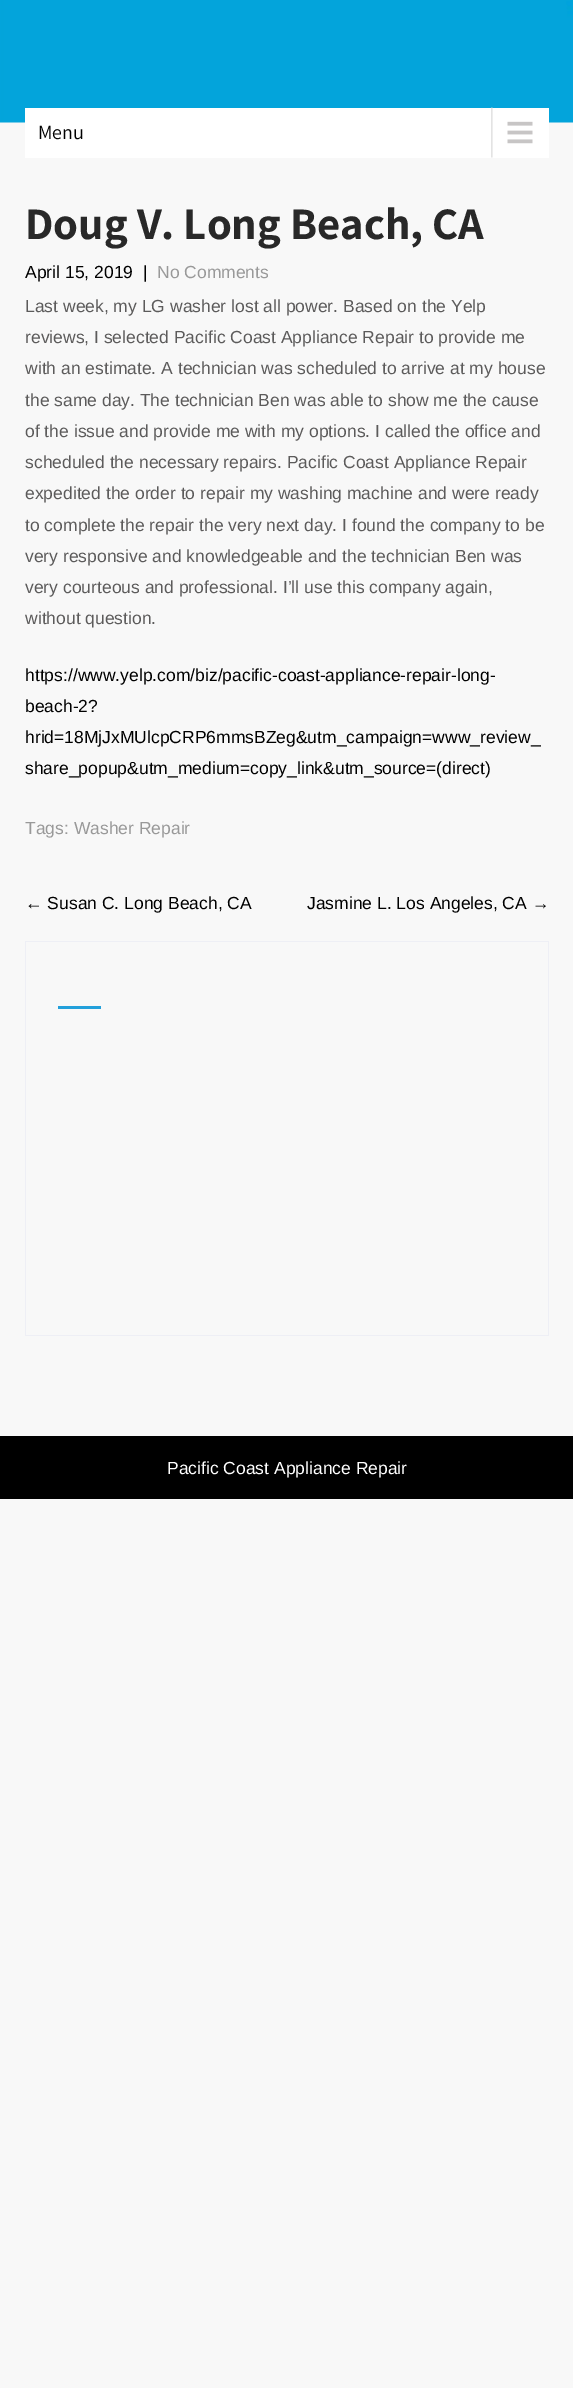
%!PS-Adobe-3.0
%%BoundingBox: 0 0 573 2388
%%LanguageLevel: 3
%%Pages: 1
%%EndComments
%%BeginProlog
/setink { 3 { 255 div 3 1 roll } repeat setrgbcolor } def
/usefont { [ exch dup neg 0 0 3 -1 roll 0 0 ] selectfont } def
/drawtext { setink usefont moveto show } def
/fillbox { setink rectfill } def
/drawimage { 5 dict begin { /h /w /y /x /name } { exch def } forall
  gsave x y translate w h scale
  w h 8 [w 0 0 h 0 0] name (r) file false 3 colorimage grestore end } def
%%EndProlog
%%BeginSetup
<< /PageSize [573 2388] >> setpagedevice
%%EndSetup
%%Page: 1 1
0 2388 translate 1 -1 scale
4 setmiterlimit
0 0 573 2388 248 248 248 fillbox
(assets/img1.rgb) 0 0 573 123 drawimage
25 108 524 50 255 255 255 fillbox
(assets/img2.rgb) 491 107 42 51 drawimage
(Menu) 38 139 /Assistant-Regular 20 0 0 0 drawtext
(Doug V. Long Beach, CA) 25 239 /Assistant-Bold 45 40 40 40 drawtext
(April 15, 2019) 25 278 /LiberationSans-Regular 17.5 0 0 0 drawtext
(|) 143 278 /LiberationSans-Regular 17.5 0 0 0 drawtext
(No Comments) 157 278 /LiberationSans-Regular 17.5 153 153 153 drawtext
(Last week, my LG washer lost all power. Based on the Yelp) 25 312 /LiberationSans-Regular 17.5 92 91 91 drawtext
(reviews, I selected Pacific Coast Appliance Repair to provide me) 25 343 /LiberationSans-Regular 17.5 92 91 91 drawtext
(with an estimate. A technician was scheduled to arrive at my house) 25 374 /LiberationSans-Regular 17.5 92 91 91 drawtext
(the same day. The technician Ben was able to show me the cause) 25 406 /LiberationSans-Regular 17.5 92 91 91 drawtext
(of the issue and provide me with my options. I called the office and) 25 437 /LiberationSans-Regular 17.5 92 91 91 drawtext
(scheduled the necessary repairs. Pacific Coast Appliance Repair) 25 468 /LiberationSans-Regular 17.5 92 91 91 drawtext
(expedited the order to repair my washing machine and were ready) 25 499 /LiberationSans-Regular 17.5 92 91 91 drawtext
(to complete the repair the very next day. I found the company to be) 25 531 /LiberationSans-Regular 17.5 92 91 91 drawtext
(very responsive and knowledgeable and the technician Ben was) 25 562 /LiberationSans-Regular 17.5 92 91 91 drawtext
(very courteous and professional. I’ll use this company again,) 25 593 /LiberationSans-Regular 17.5 92 91 91 drawtext
(without question.) 25 624 /LiberationSans-Regular 17.5 92 91 91 drawtext
(https://www.yelp.com/biz/pacific-coast-appliance-repair-long-) 25 681 /LiberationSans-Regular 17.5 0 0 0 drawtext
(beach-2?) 25 712 /LiberationSans-Regular 17.5 0 0 0 drawtext
(hrid=18MjJxMUlcpCRP6mmsBZeg&utm_campaign=www_review_) 25 743 /LiberationSans-Regular 17.5 0 0 0 drawtext
(share_popup&utm_medium=copy_link&utm_source=\(direct\)) 25 774 /LiberationSans-Regular 17.5 0 0 0 drawtext
(Tags: Washer Repair) 25 834 /LiberationSans-Regular 17.5 153 153 153 drawtext
(← Susan C. Long Beach, CA) 25 909 /LiberationSans-Regular 17.5 0 0 0 drawtext
(Jasmine L. Los Angeles, CA →) 307 909 /LiberationSans-Regular 17.5 0 0 0 drawtext
25 941 524 1 238 239 245 fillbox
548 941 1 395 238 239 245 fillbox
25 941 1 99 238 239 245 fillbox
58 1006 43 3 35 160 219 fillbox
25 1335 524 1 238 239 245 fillbox
25 1040 1 296 238 239 245 fillbox
0 1436 573 63 0 0 0 fillbox
(Pacific Coast Appliance Repair) 167 1474 /LiberationSans-Regular 17.5 255 255 255 drawtext
showpage
%%EOF
